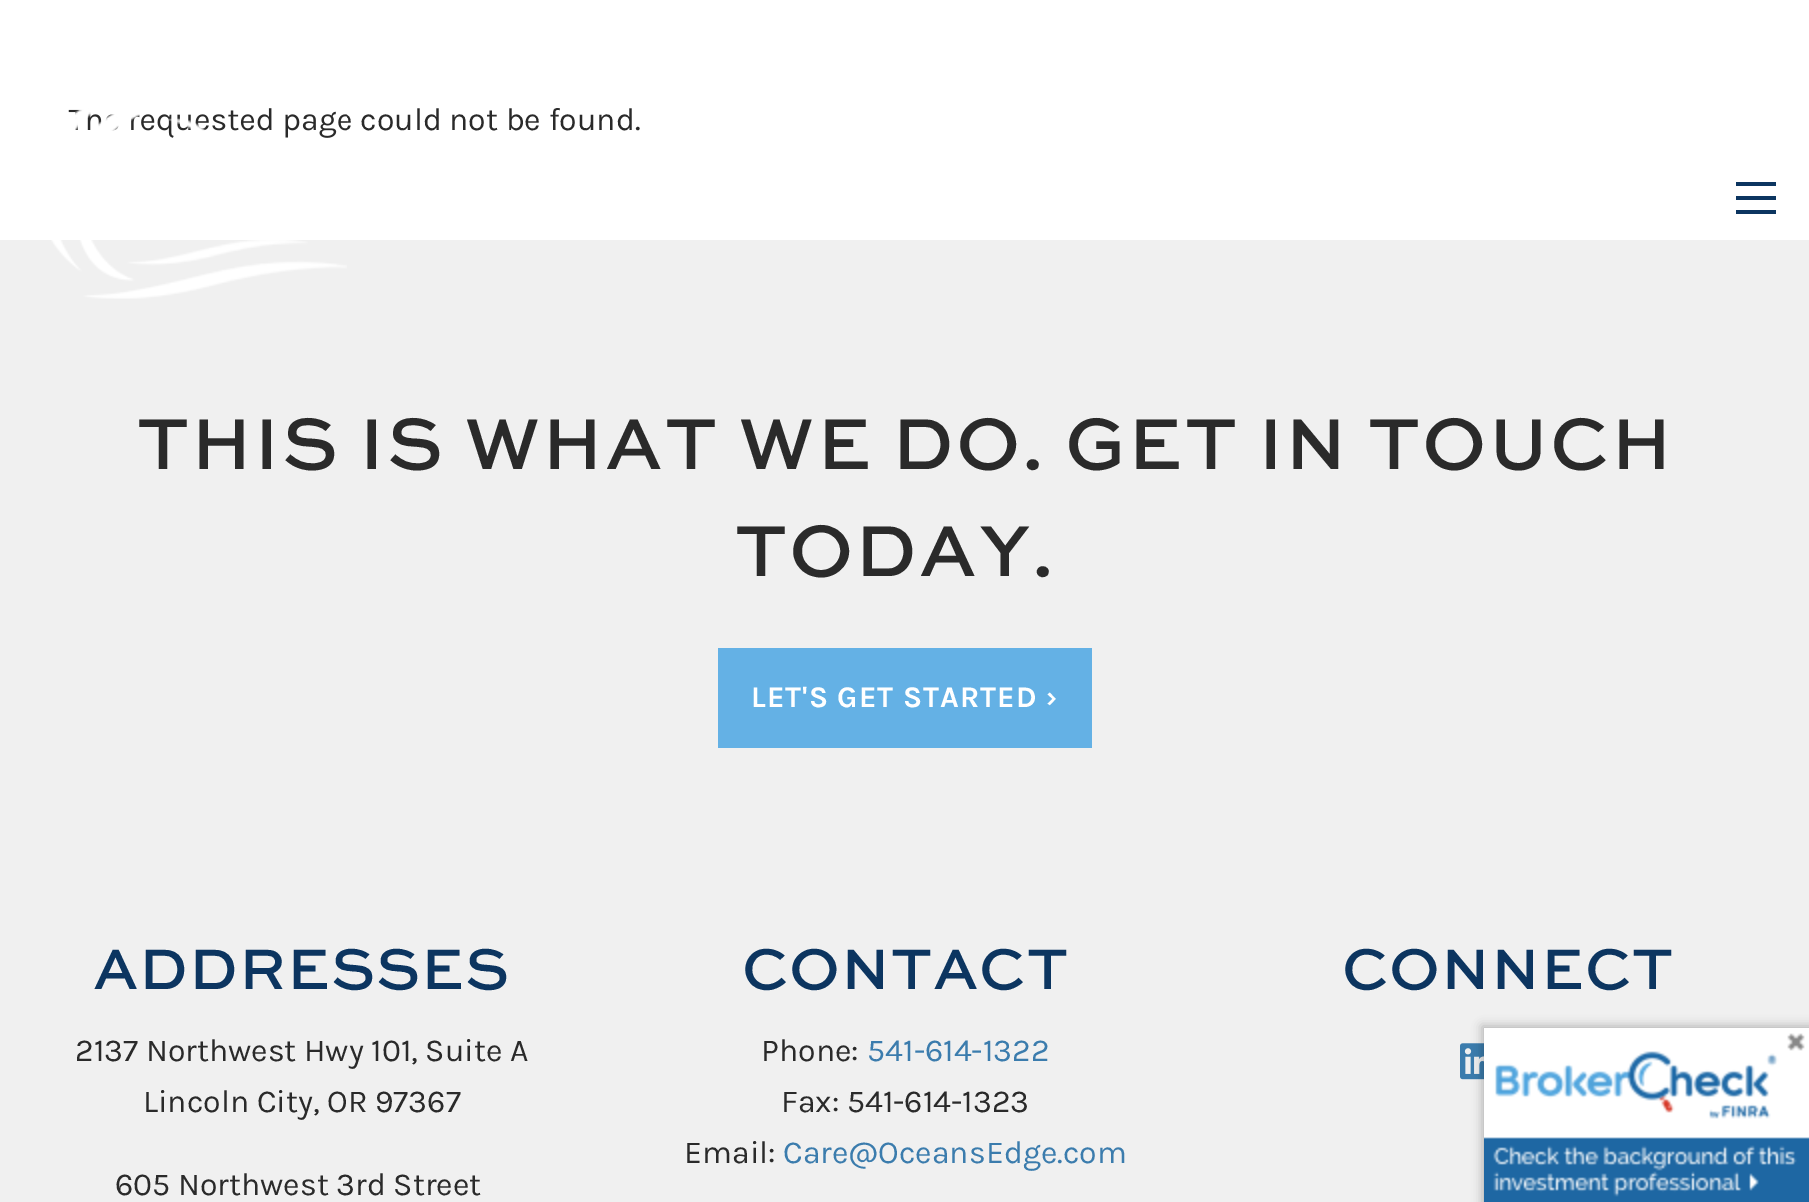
%!PS-Adobe-3.0
%%BoundingBox: 0 0 1809 1202
%%LanguageLevel: 3
%%Pages: 1
%%EndComments
%%BeginProlog
/setink { 3 { 255 div 3 1 roll } repeat setrgbcolor } def
/usefont { [ exch dup neg 0 0 3 -1 roll 0 0 ] selectfont } def
/drawtext { setink usefont moveto show } def
/fillbox { setink rectfill } def
/setalpha { dup .setfillconstantalpha .setstrokeconstantalpha } def
/rrect { 5 dict begin { /r /h /w /y /x } { exch def } forall
  x r add y moveto x w add y 2 copy h add r arct x w add y h add x 1 index r arct
  x y h add x y r arct x y 2 copy exch w add exch r arct closepath end } def
/softshadow { 12 dict begin { /a /b /q /h /w /y /x } { exch def } forall gsave /was 0 def
  9 -2 -9 { dup b mul 4 div /e exch def 1 sub .425 mul 2.718 exch exp 1 add a .99 .min exch div /now exch def
    1 1 now sub 1 was sub div sub setalpha /was now def
    w h .min e 2 mul add 0 gt { x e sub y e sub w e 2 mul add h e 2 mul add
      q e add b .6 mul add w h .min 2 div e add .min 0 .max rrect fill } if } for grestore end } def
/drawimage { 5 dict begin { /h /w /y /x /name } { exch def } forall
  gsave x y translate w h scale
  w h 8 [w 0 0 h 0 0] name (r) file false 3 colorimage grestore end } def
%%EndProlog
%%BeginSetup
<< /PageSize [1809 1202] /PageUsesTransparency true >> setpagedevice
%%EndSetup
%%Page: 1 1
0 .pushpdf14devicefilter
0 1202 translate 1 -1 scale
4 setmiterlimit
0 0 1809 1202 255 255 255 fillbox
(eq) 139 130 /Karla-Regular 32 42 42 42 drawtext
(sted page could not be found.) 210 130 /Karla-Regular 32 42 42 42 drawtext
0 240 1809 962 240 240 240 fillbox
(assets/img1.rgb) 51 108 296 191 drawimage
1736 210 40 4 12 53 96 fillbox
1736 196 40 4 12 53 96 fillbox
1736 182 40 4 12 53 96 fillbox
/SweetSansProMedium-Medium 76 usefont
42 42 42 setink
137 469 moveto 2 0 (THIS IS WHAT WE DO. GET IN TOUCH) ashow
735 576 moveto 2 0 (TODAY.) ashow
718 648 374 100 100 177 229 fillbox
/Karla-Bold 30 usefont
255 255 255 setink
751 707 moveto 1 0 (LET'S GET STARTED ›) ashow
/SweetSansProMedium-Medium 60 usefont
12 53 96 setink
93 989 moveto 1 0 (ADDRESSES) ashow
(2137 Northwest Hwy 101, Suite A) 75 1061 /Karla-Regular 32 42 42 42 drawtext
(Lincoln City, OR 97367) 143 1112 /Karla-Regular 32 42 42 42 drawtext
(605 Northwest 3rd Street) 115 1195 /Karla-Regular 32 42 42 42 drawtext
/SweetSansProMedium-Medium 60 usefont
12 53 96 setink
742 989 moveto 1 0 (CONTACT) ashow
(Phone:) 761 1061 /Karla-Regular 32 42 42 42 drawtext
(541-614-1322) 867 1061 /Karla-Regular 32 59 124 173 drawtext
(Fax: 541-614-1323) 781 1112 /Karla-Regular 32 42 42 42 drawtext
(Email:) 684 1163 /Karla-Regular 32 42 42 42 drawtext
(Care@OceansEdge.com) 783 1163 /Karla-Regular 32 59 124 173 drawtext
/SweetSansProMedium-Medium 60 usefont
12 53 96 setink
1342 989 moveto 1 0 (CONNECT) ashow
(assets/img2.rgb) 1460 1043 24 37 drawimage
1484 1028 325 111 255 255 255 fillbox
gsave
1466 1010 moveto 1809 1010 lineto 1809 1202 lineto 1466 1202 lineto closepath 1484 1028 moveto 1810 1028 lineto 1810 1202 lineto 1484 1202 lineto closepath eoclip newpath
0 0 0 setink
1482 1026 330 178 0 5 0.25 softshadow
grestore
(assets/img3.rgb) 1484 1033 325 169 drawimage
.poppdf14devicefilter showpage
%%EOF
